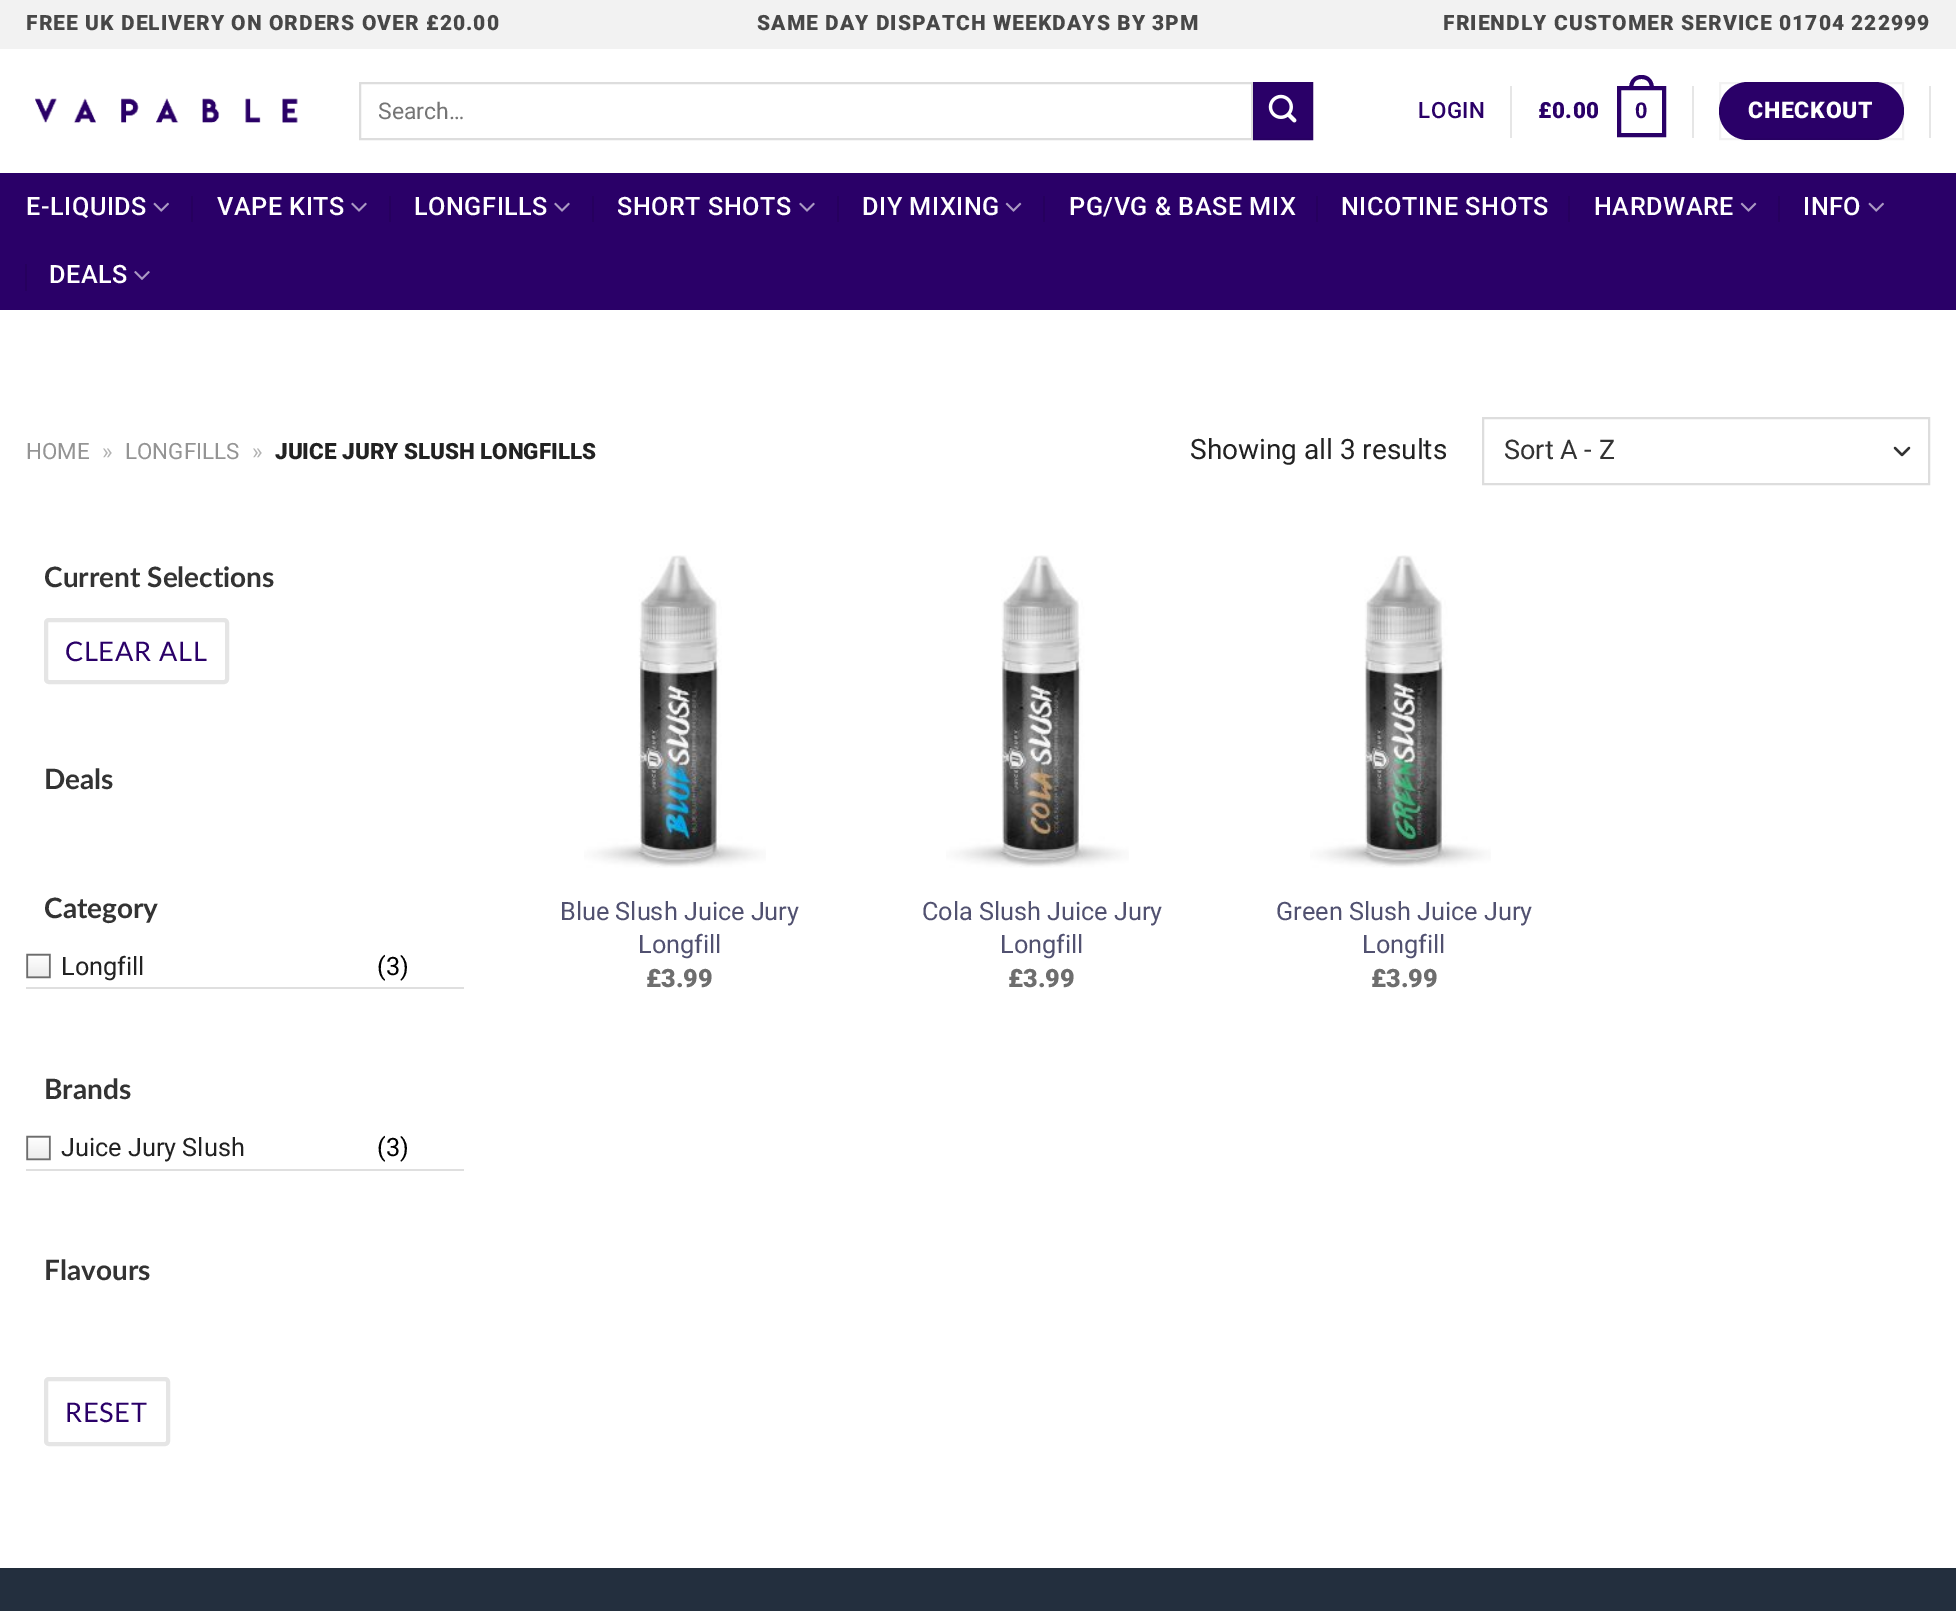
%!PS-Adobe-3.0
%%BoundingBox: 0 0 1956 1611
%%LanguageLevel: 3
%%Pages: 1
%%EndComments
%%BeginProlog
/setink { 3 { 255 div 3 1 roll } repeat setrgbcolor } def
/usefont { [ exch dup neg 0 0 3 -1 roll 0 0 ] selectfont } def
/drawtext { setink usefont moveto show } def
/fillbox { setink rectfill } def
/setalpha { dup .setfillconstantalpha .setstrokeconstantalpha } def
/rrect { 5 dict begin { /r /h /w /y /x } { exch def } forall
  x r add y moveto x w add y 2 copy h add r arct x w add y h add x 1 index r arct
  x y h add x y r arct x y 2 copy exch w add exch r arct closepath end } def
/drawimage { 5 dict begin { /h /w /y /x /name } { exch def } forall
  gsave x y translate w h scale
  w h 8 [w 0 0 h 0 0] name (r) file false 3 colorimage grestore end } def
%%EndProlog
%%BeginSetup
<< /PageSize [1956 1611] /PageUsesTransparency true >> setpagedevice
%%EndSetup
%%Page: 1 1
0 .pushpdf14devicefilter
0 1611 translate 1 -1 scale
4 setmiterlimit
0 0 1956 1611 255 255 255 fillbox
0 0 1956 49 242 242 242 fillbox
/Roboto-Black 21 usefont
71 71 71 setink
26 30 moveto 1.05 0 (FREE UK DELIVERY ON ORDERS OVER £20.00) ashow
757 30 moveto 1.05 0 (SAME DAY DISPATCH WEEKDAYS BY 3PM) ashow
1443 30 moveto 1.05 0 (FRIENDLY CUSTOMER SERVICE 01704 222999) ashow
(assets/img1.rgb) 35 98 263 25 drawimage
221 221 221 setink
2 setlinewidth
360 83 892 56 rectstroke
(Search…) 378 119 /Roboto-Regular 23 117 117 117 drawtext
42 0 104 setink
1254 83 moveto 1312 83 lineto 1312 139 lineto 1254 139 lineto closepath gsave fill grestore
40 0 99 setink
stroke
(assets/img2.rgb) 1268 94 29 29 drawimage
/Roboto-Medium 22.4 usefont
42 0 104 setink
1418 118 moveto 0.5 0 (LOGIN) ashow
1510 86 2 52 230 230 230 fillbox
/Roboto-Black 22.4 usefont
42 0 104 setink
1538 118 moveto 0.5 0 (£0.00) ashow
4 setlinewidth
1619 88 45 47 rectstroke
1641.5 75 moveto 1650 75 1654 81.5 1654 89 curveto 1629 89 lineto 1629 81.5 1633 75 1641.5 75 curveto closepath 1641.5 79 moveto 1648 79 1650 83.5 1650 89 curveto 1633 89 lineto 1633 83.5 1635 79 1641.5 79 curveto closepath eofill
/LiberationSans-Bold 22.4 usefont
1635 118 moveto 0.5 0 (0) ashow
1692 86 2 52 230 230 230 fillbox
42 0 104 setink
1719 82 185 58 29 rrect fill
0.05 setalpha
0 0 0 setink
2 setlinewidth
1720 83 183 56 rectstroke
/Roboto-Black 23 usefont
1 setalpha
255 255 255 setink
1748 118 moveto 0.75 0 (CHECKOUT) ashow
1929 86 2 52 230 230 230 fillbox
0 173 1956 137 42 0 104 fillbox
/Roboto-Medium 25.25 usefont
255 255 255 setink
26 215 moveto 0.5 0 (E-LIQUIDS) ashow
(assets/img3.rgb) 153 202 16 10 drawimage
191 196 2 26 38 0 94 fillbox
255 255 255 setink
217 215 moveto 0.5 0 (VAPE KITS) ashow
(assets/img4.rgb) 351 202 16 10 drawimage
389 196 2 26 38 0 94 fillbox
255 255 255 setink
414 215 moveto 0.5 0 (LONGFILLS) ashow
(assets/img4.rgb) 554 202 16 10 drawimage
592 196 2 26 38 0 94 fillbox
255 255 255 setink
617 215 moveto 0.5 0 (SHORT SHOTS) ashow
(assets/img4.rgb) 799 202 16 10 drawimage
837 196 2 26 38 0 94 fillbox
255 255 255 setink
862 215 moveto 0.5 0 (DIY MIXING) ashow
(assets/img5.rgb) 1005 202 17 10 drawimage
1043 196 2 26 38 0 94 fillbox
255 255 255 setink
1069 215 moveto 0.5 0 (PG/VG & BASE MIX) ashow
1316 196 2 26 38 0 94 fillbox
255 255 255 setink
1341 215 moveto 0.5 0 (NICOTINE SHOTS) ashow
1568 196 2 26 38 0 94 fillbox
255 255 255 setink
1594 215 moveto 0.5 0 (HARDWARE) ashow
(assets/img5.rgb) 1740 202 17 10 drawimage
1778 196 2 26 38 0 94 fillbox
255 255 255 setink
1803 215 moveto 0.5 0 (INFO) ashow
(assets/img3.rgb) 1868 202 16 10 drawimage
25 264 2 27 38 0 94 fillbox
255 255 255 setink
49 283 moveto 0.5 0 (DEALS) ashow
(assets/img6.rgb) 134 271 16 9 drawimage
(HOME) 26 459 /Roboto-Regular 22.4 148 148 148 drawtext
(») 102 459 /Roboto-Regular 22.4 178 178 178 drawtext
(LONGFILLS) 125 459 /Roboto-Regular 22.4 148 148 148 drawtext
(») 252 459 /Roboto-Regular 22.4 178 178 178 drawtext
(JUICE JURY SLUSH LONGFILLS) 275 459 /Roboto-Black 22.4 34 34 34 drawtext
(Showing all 3 results) 1190 459 /Roboto-Regular 28 34 34 34 drawtext
51 51 51 setink
2.3 setlinewidth
1 setlinecap
1 setlinejoin
1895 448 moveto 1902 455 lineto 1909 448 lineto stroke
221 221 221 setink
2 setlinewidth
0 setlinecap
0 setlinejoin
1483 418 446 66 rectstroke
(Sort A - Z) 1504 459 /Roboto-Regular 27 51 51 51 drawtext
(Current Selections) 44 587 /Lato-Bold 28 51 51 51 drawtext
229 229 229 setink
4 setlinewidth
46 620 181 62 3 rrect stroke
/Lato-Regular 27 usefont
42 0 104 setink
65 661 moveto 0.75 0 (CLEAR ALL) ashow
(Deals) 44 789 /Lato-Bold 28 51 51 51 drawtext
(Category) 44 918 /Lato-Bold 28 51 51 51 drawtext
(assets/img7.rgb) 26 953 25 26 drawimage
26 987 438 2 223 223 223 fillbox
(Longfill) 61 975 /Roboto-Regular 25.25 34 34 34 drawtext
(\(3\)) 377 975 /Roboto-Regular 25.25 0 0 0 drawtext
(Brands) 44 1099 /Lato-Bold 28 51 51 51 drawtext
(assets/img7.rgb) 26 1135 25 26 drawimage
26 1169 438 2 223 223 223 fillbox
(Juice Jury Slush) 61 1156 /Roboto-Regular 25.25 34 34 34 drawtext
(\(3\)) 377 1156 /Roboto-Regular 25.25 0 0 0 drawtext
(Flavours) 44 1280 /Lato-Bold 28 51 51 51 drawtext
229 229 229 setink
46 1379 122 65 3 rrect stroke
/Lato-Regular 27 usefont
42 0 104 setink
65 1422 moveto 0.75 0 (RESET) ashow
(assets/img8.rgb) 584 555 182 313 drawimage
(Blue Slush Juice Jury) 560 920 /Roboto-Regular 25.25 81 81 112 drawtext
(Longfill) 638 953 /Roboto-Regular 25.25 81 81 112 drawtext
(£3.99) 646 987 /Roboto-Black 25.25 110 110 110 drawtext
(assets/img9.rgb) 946 555 183 313 drawimage
(Cola Slush Juice Jury) 922 920 /Roboto-Regular 25.25 81 81 112 drawtext
(Longfill) 1000 953 /Roboto-Regular 25.25 81 81 112 drawtext
(£3.99) 1008 987 /Roboto-Black 25.25 110 110 110 drawtext
(assets/img10.rgb) 1310 555 181 313 drawimage
(Green Slush Juice Jury) 1276 920 /Roboto-Regular 25.25 81 81 112 drawtext
(Longfill) 1362 953 /Roboto-Regular 25.25 81 81 112 drawtext
(£3.99) 1371 987 /Roboto-Black 25.25 110 110 110 drawtext
0 1570 1956 41 35 47 62 fillbox
0 1568 1956 2 33 45 59 fillbox
.poppdf14devicefilter showpage
%%EOF
